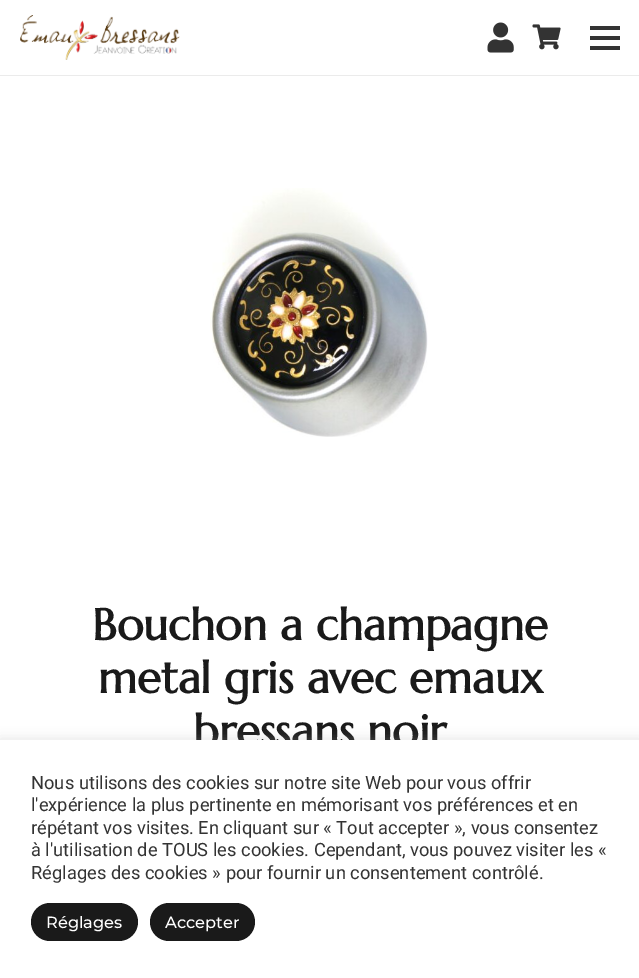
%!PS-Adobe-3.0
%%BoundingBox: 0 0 639 978
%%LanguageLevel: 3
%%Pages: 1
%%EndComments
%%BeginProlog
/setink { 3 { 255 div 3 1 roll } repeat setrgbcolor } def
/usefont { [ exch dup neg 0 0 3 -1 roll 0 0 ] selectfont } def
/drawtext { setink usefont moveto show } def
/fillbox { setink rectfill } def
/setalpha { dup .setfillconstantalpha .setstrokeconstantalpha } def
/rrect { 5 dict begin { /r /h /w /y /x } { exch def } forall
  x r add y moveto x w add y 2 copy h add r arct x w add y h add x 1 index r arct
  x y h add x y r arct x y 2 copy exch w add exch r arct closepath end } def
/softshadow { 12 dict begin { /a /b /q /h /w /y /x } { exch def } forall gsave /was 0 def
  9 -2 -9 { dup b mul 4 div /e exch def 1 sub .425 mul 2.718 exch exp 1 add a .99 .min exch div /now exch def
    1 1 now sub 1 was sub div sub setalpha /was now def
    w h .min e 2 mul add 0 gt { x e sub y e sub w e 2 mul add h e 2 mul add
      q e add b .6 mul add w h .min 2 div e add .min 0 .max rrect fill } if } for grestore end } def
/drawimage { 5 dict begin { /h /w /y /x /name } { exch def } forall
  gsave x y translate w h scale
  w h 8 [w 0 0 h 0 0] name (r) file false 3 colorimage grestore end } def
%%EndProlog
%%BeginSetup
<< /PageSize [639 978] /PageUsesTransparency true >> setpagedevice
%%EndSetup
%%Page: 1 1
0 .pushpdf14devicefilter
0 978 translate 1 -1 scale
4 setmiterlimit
0 0 639 978 255 255 255 fillbox
0 75 639 1 235 235 235 fillbox
(assets/img1.rgb) 20 15 160 45 drawimage
(assets/img2.rgb) 487 22 27 31 drawimage
(assets/img3.rgb) 532 24 29 26 drawimage
590 36 30 4 51 51 51 fillbox
590 26 30 4 51 51 51 fillbox
590 46 30 4 51 51 51 fillbox
(assets/img4.rgb) 210 188 218 249 drawimage
(Bouchon a champagne) 92 640 /Marcellus-Bold 44 26 26 26 drawtext
(metal gris avec emaux) 98 693 /Marcellus-Bold 44 26 26 26 drawtext
(bressans noir) 193 746 /Marcellus-Bold 44 26 26 26 drawtext
172 171 171 setink
0 739 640 239 0 6 0.3 softshadow
0 740 639 238 255 255 255 fillbox
(Nous utilisons des cookies sur notre site Web pour vous offrir) 31 789 /Roboto-Regular 18.3 51 51 51 drawtext
(l'expérience la plus pertinente en mémorisant vos préférences et en) 31 811 /Roboto-Regular 18.3 51 51 51 drawtext
(répétant vos visites. En cliquant sur « Tout accepter », vous consentez) 31 834 /Roboto-Regular 18.3 51 51 51 drawtext
(à l'utilisation de TOUS les cookies. Cependant, vous pouvez visiter les «) 31 856 /Roboto-Regular 18.3 51 51 51 drawtext
(Réglages des cookies » pour fournir un consentement contrôlé.) 31 879 /Roboto-Regular 18.3 51 51 51 drawtext
26 26 26 setink
31 903 107 38 19 rrect fill
(Réglages) 46 928 /Montserrat-Medium 16.25 255 255 255 drawtext
26 26 26 setink
150 903 105 38 19 rrect fill
(Accepter) 165 928 /Montserrat-Medium 16.25 255 255 255 drawtext
.poppdf14devicefilter showpage
%%EOF
